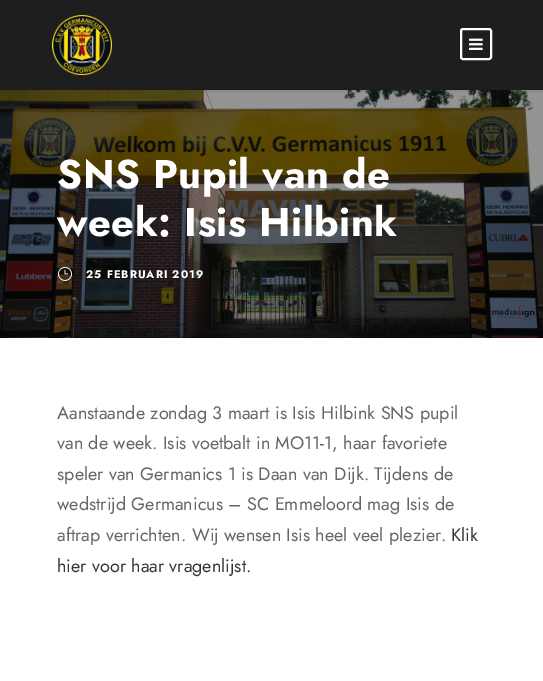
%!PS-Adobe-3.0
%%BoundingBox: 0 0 543 681
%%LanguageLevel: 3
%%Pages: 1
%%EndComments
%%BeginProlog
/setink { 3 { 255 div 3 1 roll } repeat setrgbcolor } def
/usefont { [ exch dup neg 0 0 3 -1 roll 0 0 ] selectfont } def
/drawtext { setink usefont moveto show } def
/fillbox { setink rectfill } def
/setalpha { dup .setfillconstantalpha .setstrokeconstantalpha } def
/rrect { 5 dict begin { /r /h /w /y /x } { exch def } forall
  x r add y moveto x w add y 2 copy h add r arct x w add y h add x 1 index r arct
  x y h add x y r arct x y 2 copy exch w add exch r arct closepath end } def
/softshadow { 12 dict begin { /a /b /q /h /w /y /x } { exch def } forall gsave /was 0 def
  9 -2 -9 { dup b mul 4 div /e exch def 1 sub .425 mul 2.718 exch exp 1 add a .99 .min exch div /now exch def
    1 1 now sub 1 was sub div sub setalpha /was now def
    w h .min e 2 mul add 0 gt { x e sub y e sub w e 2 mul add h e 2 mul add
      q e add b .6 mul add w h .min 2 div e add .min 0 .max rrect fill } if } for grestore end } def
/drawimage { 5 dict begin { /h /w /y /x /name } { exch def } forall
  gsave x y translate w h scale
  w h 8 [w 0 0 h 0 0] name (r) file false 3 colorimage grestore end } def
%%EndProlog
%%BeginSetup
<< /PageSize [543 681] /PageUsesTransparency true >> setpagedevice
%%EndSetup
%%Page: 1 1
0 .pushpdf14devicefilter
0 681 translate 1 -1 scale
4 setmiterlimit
0 0 543 681 255 255 255 fillbox
(assets/img3.rgb) 0 90 543 248 drawimage
0 0 0 setink
0 1 543 90 0 1 0.1 softshadow
0 0 543 90 30 30 30 fillbox
(assets/img1.rgb) 52 15 60 60 drawimage
255 255 255 setink
2 setlinewidth
461 29 30 30 2 rrect stroke
(assets/img2.rgb) 469 38 14 12 drawimage
/Jost-Bold 40 usefont
57 188 moveto 0.5 0 (SNS Pupil van de) ashow
57 236 moveto 0.5 0 (week: Isis Hilbink) ashow
(assets/img4.rgb) 58 266 14 15 drawimage
/Jost-Bold 11 usefont
86 278 moveto 1 0 (25 FEBRUARI 2019) ashow
(Aanstaande zondag 3 maart is Isis Hilbink SNS pupil) 57 419 /Jost-Regular 18 102 102 102 drawtext
(van de week. Isis voetbalt in MO11-1, haar favoriete) 57 449 /Jost-Regular 18 102 102 102 drawtext
(speler van Germanics 1 is Daan van Dijk. Tijdens de) 57 480 /Jost-Regular 18 102 102 102 drawtext
(wedstrijd Germanicus – SC Emmeloord mag Isis de) 57 510 /Jost-Regular 18 102 102 102 drawtext
(aftrap verrichten. Wij wensen Isis heel veel plezier.) 57 541 /Jost-Regular 18 102 102 102 drawtext
(Klik) 451 541 /Jost-Regular 18 55 55 55 drawtext
(hier voor haar vragenlijst.) 57 572 /Jost-Regular 18 55 55 55 drawtext
.poppdf14devicefilter showpage
%%EOF
